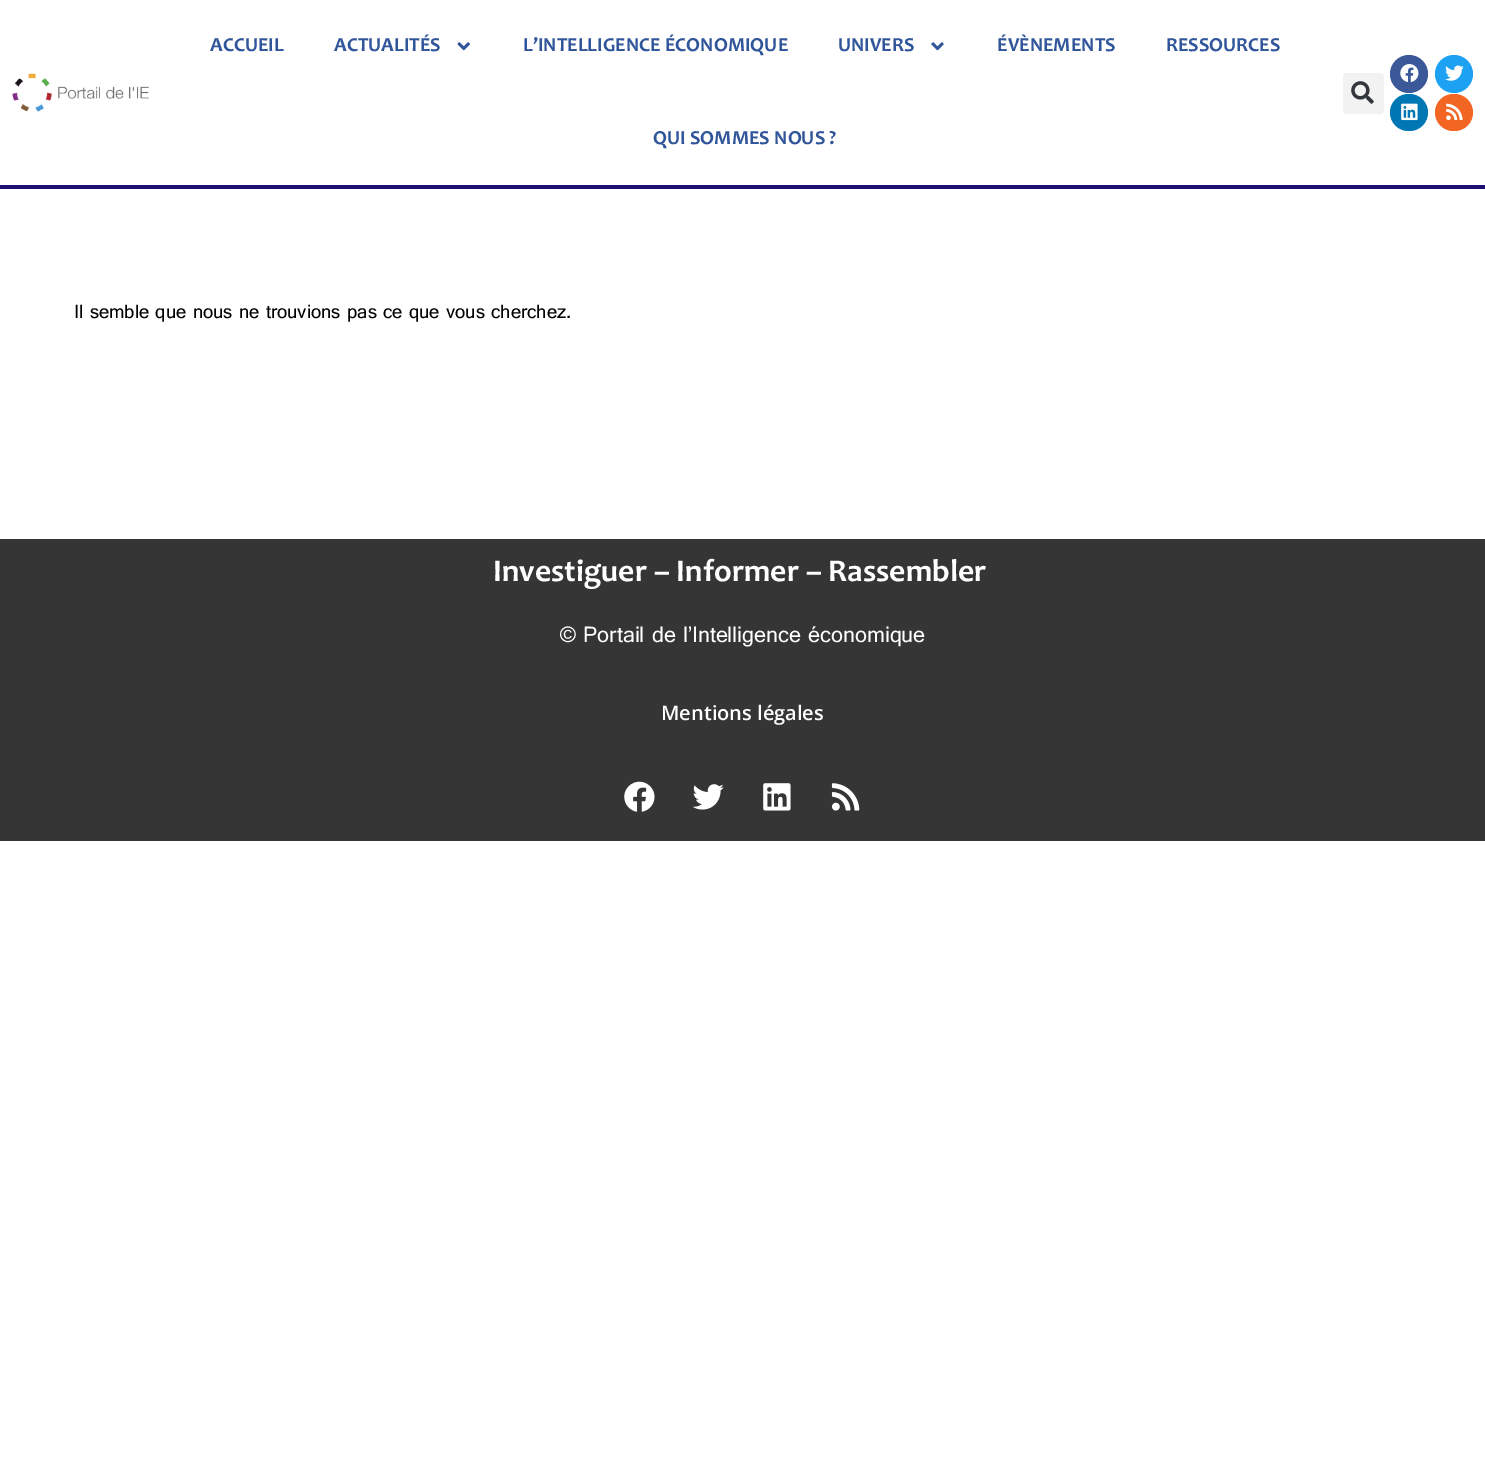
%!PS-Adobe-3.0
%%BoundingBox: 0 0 1485 1468
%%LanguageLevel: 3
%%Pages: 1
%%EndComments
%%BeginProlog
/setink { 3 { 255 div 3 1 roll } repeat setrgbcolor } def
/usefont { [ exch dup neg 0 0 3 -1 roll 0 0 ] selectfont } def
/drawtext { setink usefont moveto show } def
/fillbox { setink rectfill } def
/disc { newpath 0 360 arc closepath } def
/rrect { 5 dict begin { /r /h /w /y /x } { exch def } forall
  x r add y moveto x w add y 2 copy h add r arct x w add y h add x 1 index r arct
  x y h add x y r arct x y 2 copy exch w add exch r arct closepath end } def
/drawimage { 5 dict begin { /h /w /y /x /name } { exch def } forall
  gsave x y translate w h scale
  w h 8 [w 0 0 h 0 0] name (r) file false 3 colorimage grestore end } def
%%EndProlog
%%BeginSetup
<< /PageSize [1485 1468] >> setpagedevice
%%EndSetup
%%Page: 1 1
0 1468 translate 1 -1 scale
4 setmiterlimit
0 0 1485 1468 255 255 255 fillbox
0 185 1485 4 28 15 115 fillbox
(assets/img1.rgb) 12 73 137 39 drawimage
(ACCUEIL) 210 51 /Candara-Bold 20 48 85 154 drawtext
(ACTUALITÉS) 334 51 /Candara-Bold 20 48 85 154 drawtext
(assets/img2.rgb) 457 42 13 9 drawimage
(L’INTELLIGENCE ÉCONOMIQUE) 523 51 /Candara-Bold 20 48 85 154 drawtext
(UNIVERS) 838 51 /Candara-Bold 20 48 85 154 drawtext
(assets/img3.rgb) 931 42 13 9 drawimage
(ÉVÈNEMENTS) 997 51 /Candara-Bold 20 48 85 154 drawtext
(RESSOURCES) 1166 51 /Candara-Bold 20 48 85 154 drawtext
(QUI SOMMES NOUS ?) 653 144 /Candara-Bold 20 48 85 154 drawtext
242 242 242 setink
1343 73 41 41 4 rrect fill
(assets/img4.rgb) 1351 81 23 23 drawimage
59 89 152 setink
1409 74 19 disc fill
(assets/img5.rgb) 1400 64 19 18 drawimage
29 161 242 setink
1454 74 19 disc fill
(assets/img6.rgb) 1445 65 19 16 drawimage
0 119 181 setink
1390 94 38 37 18.5 rrect fill
(assets/img7.rgb) 1401 103 17 18 drawimage
242 101 34 setink
1435 94 38 37 18.5 rrect fill
(assets/img8.rgb) 1446 103 17 18 drawimage
(Il semble que nous ne trouvions pas ce que vous cherchez.) 74 318 /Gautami-Regular 20 0 0 0 drawtext
0 539 1485 302 53 53 53 fillbox
(Investiguer – Informer – Rassembler) 493 581 /Candara-Bold 31.7 255 255 255 drawtext
(© Portail de l’Intelligence économique) 560 642 /Gautami-Regular 23.3 255 255 255 drawtext
(Mentions légales) 661 720 /OpenSans-SemiBold 20 255 255 255 drawtext
(assets/img9.rgb) 624 781 31 31 drawimage
(assets/img10.rgb) 693 784 31 26 drawimage
(assets/img11.rgb) 763 783 28 28 drawimage
(assets/img12.rgb) 831 783 29 28 drawimage
showpage
%%EOF
